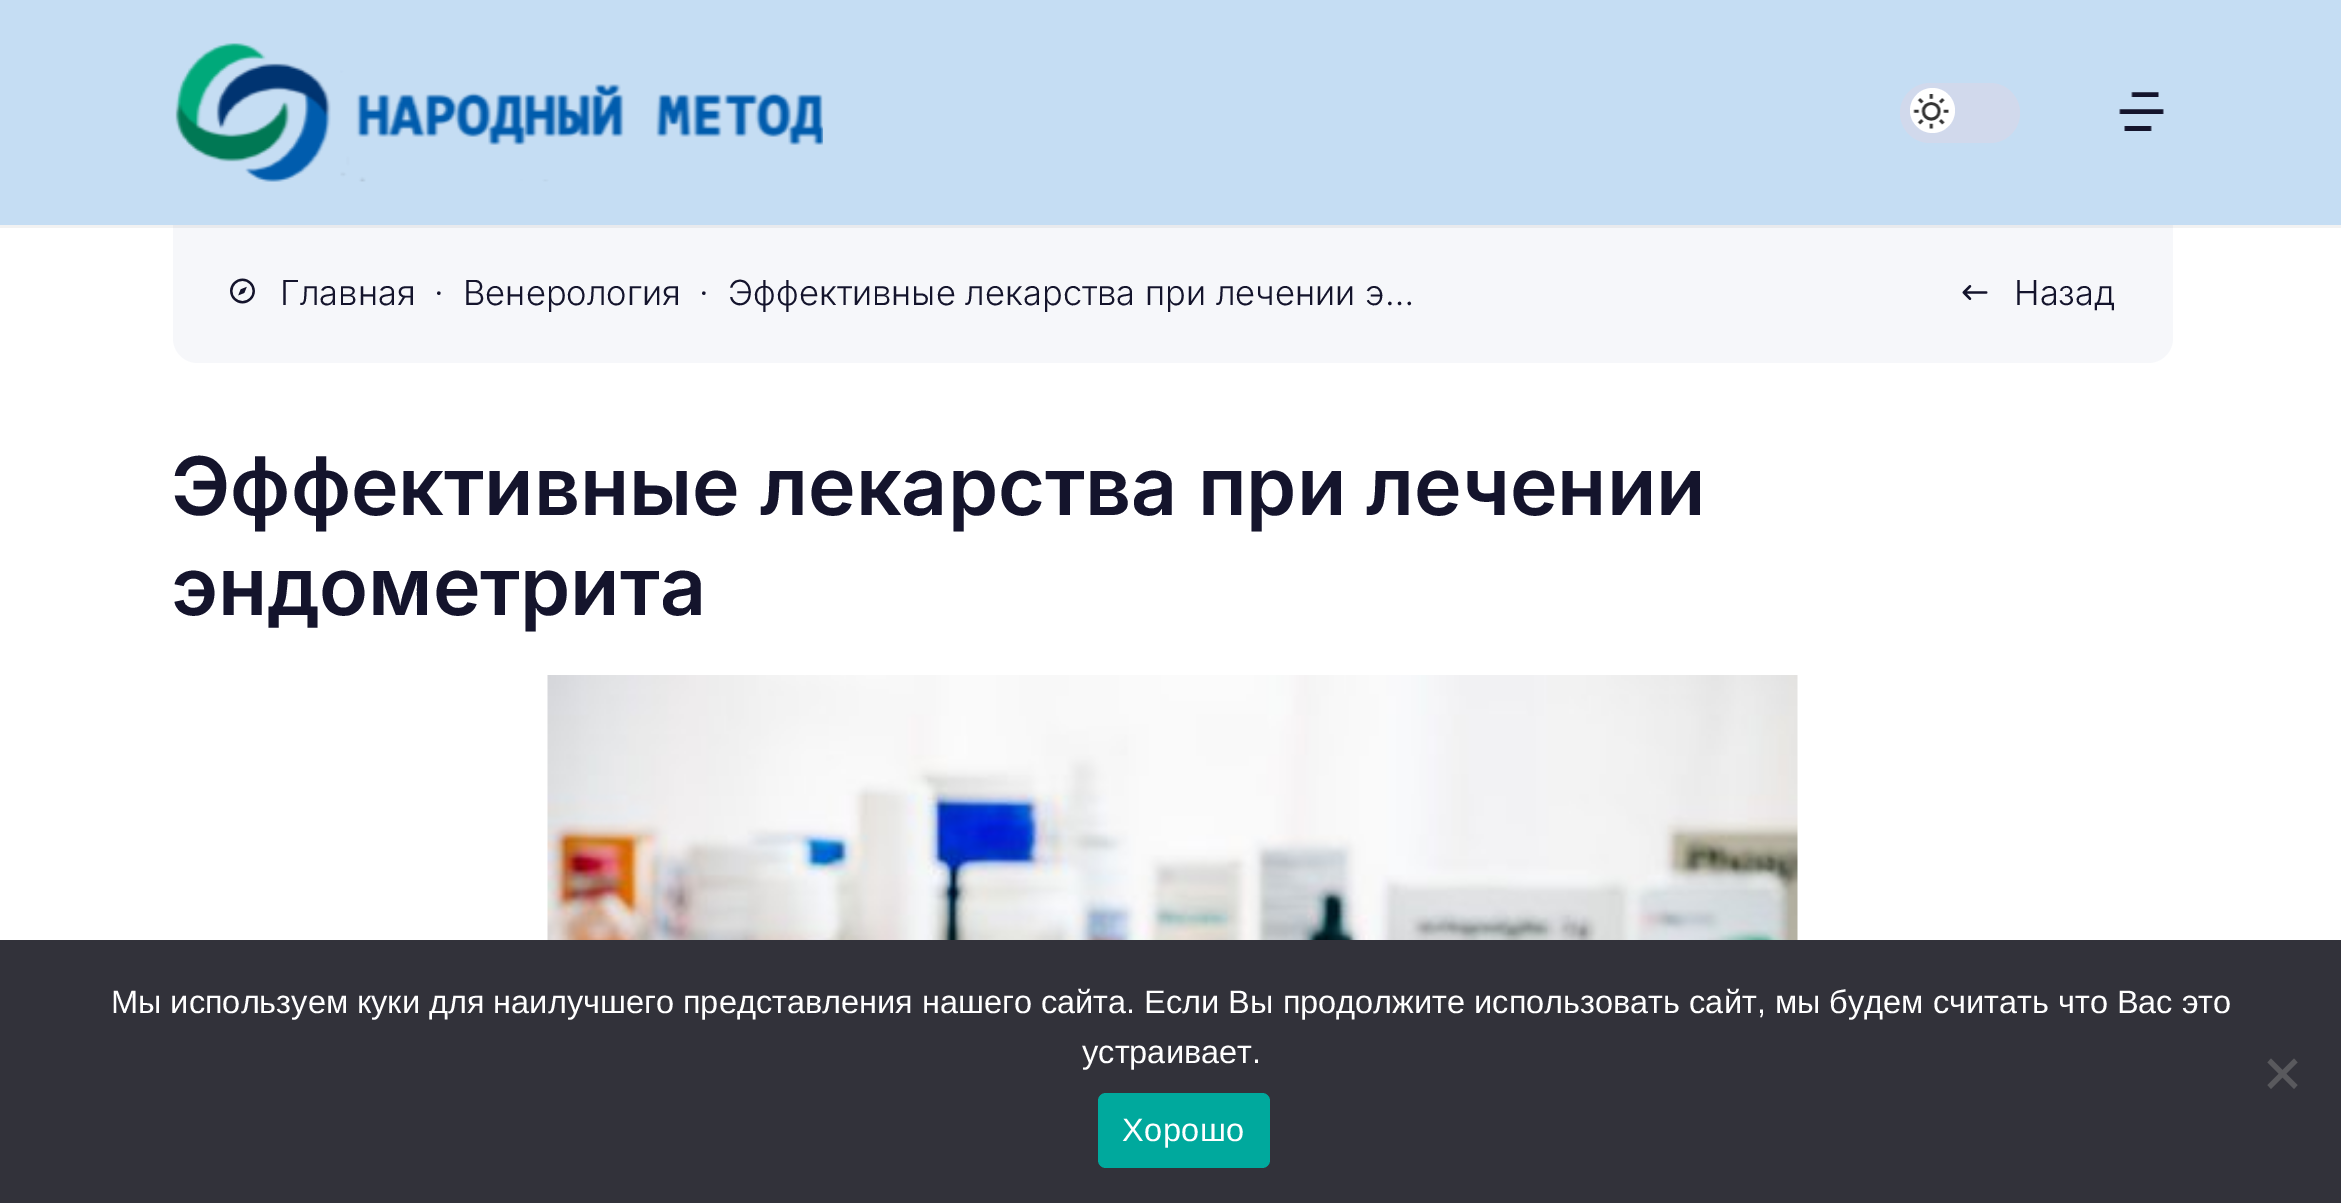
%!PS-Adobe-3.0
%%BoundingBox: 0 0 2341 1203
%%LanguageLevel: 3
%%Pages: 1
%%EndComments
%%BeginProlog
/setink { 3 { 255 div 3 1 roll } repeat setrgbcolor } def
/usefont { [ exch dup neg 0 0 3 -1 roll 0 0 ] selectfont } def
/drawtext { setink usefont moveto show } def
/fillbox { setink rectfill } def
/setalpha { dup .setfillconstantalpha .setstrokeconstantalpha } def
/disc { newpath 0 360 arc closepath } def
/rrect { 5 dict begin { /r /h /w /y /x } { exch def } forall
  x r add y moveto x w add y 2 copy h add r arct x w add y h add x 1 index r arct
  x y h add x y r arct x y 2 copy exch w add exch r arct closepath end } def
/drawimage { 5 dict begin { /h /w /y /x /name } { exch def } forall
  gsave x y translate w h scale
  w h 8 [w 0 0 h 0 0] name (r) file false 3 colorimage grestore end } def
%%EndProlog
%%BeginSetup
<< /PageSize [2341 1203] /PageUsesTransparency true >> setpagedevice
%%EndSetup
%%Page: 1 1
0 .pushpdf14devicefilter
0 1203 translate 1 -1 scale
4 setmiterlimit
0 0 2341 1203 255 255 255 fillbox
246 247 250 setink
173 225 moveto 2173 225 lineto 2173 338 lineto 2173 352 2162 363 2148 363 curveto 198 363 lineto 184 363 173 352 173 338 curveto closepath fill
0.05 setalpha
0 0 0 setink
0 225 moveto 0 228 lineto 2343 228 lineto 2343 3 lineto 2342 3 lineto 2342 225 lineto closepath fill
1 setalpha
0 0 2341 225 197 221 243 fillbox
(assets/img1.rgb) 175 43 648 139 drawimage
209 217 236 setink
1900 83 120 60 30 rrect fill
255 255 255 setink
1932.5 110.5 22.5 disc fill
(assets/img2.rgb) 1913 94 36 35 drawimage
(assets/img3.rgb) 2119 92 45 39 drawimage
(assets/img4.rgb) 230 278 25 26 drawimage
(Главная) 280 305 /Inter-Light 34.5 20 20 44 drawtext
(·) 434 305 /Inter-Light 34.5 20 20 44 drawtext
(Венерология) 463 305 /Inter-Light 34.5 20 20 44 drawtext
(·) 699 305 /Inter-Light 34.5 20 20 44 drawtext
(Эффективные лекарства при лечении э…) 728 305 /Inter-Light 34.5 20 20 44 drawtext
(assets/img5.rgb) 1962 285 26 15 drawimage
(Назад) 2014 305 /Inter-Light 34.5 20 20 44 drawtext
(Эффективные лекарства при лечении) 171 515 /Inter-SemiBold 80.6 20 20 44 drawtext
(эндометрита) 171 615 /Inter-SemiBold 80.6 20 20 44 drawtext
(assets/img6.rgb) 547 675 1251 265 drawimage
0 940 2341 263 50 50 58 fillbox
(Мы используем куки для наилучшего представления нашего сайта. Если Вы продолжите использовать сайт, мы будем считать что Вас это) 111 1013 /LiberationSans-Regular 32.5 255 255 255 drawtext
(устраивает.) 1082 1063 /LiberationSans-Regular 32.5 255 255 255 drawtext
89 89 93 setink
2294 1058.5 moveto 2297.5 1062.5 lineto 2271 1089 lineto 2267.5 1085 lineto closepath fill
2267.5 1062.5 moveto 2271 1058.5 lineto 2297.5 1085 lineto 2294 1089 lineto closepath fill
0 169 157 setink
1098 1093 172 75 8 rrect fill
255 255 255 setink
1122 1141 moveto 0.5 0 (Хорошо) ashow
.poppdf14devicefilter showpage
%%EOF
